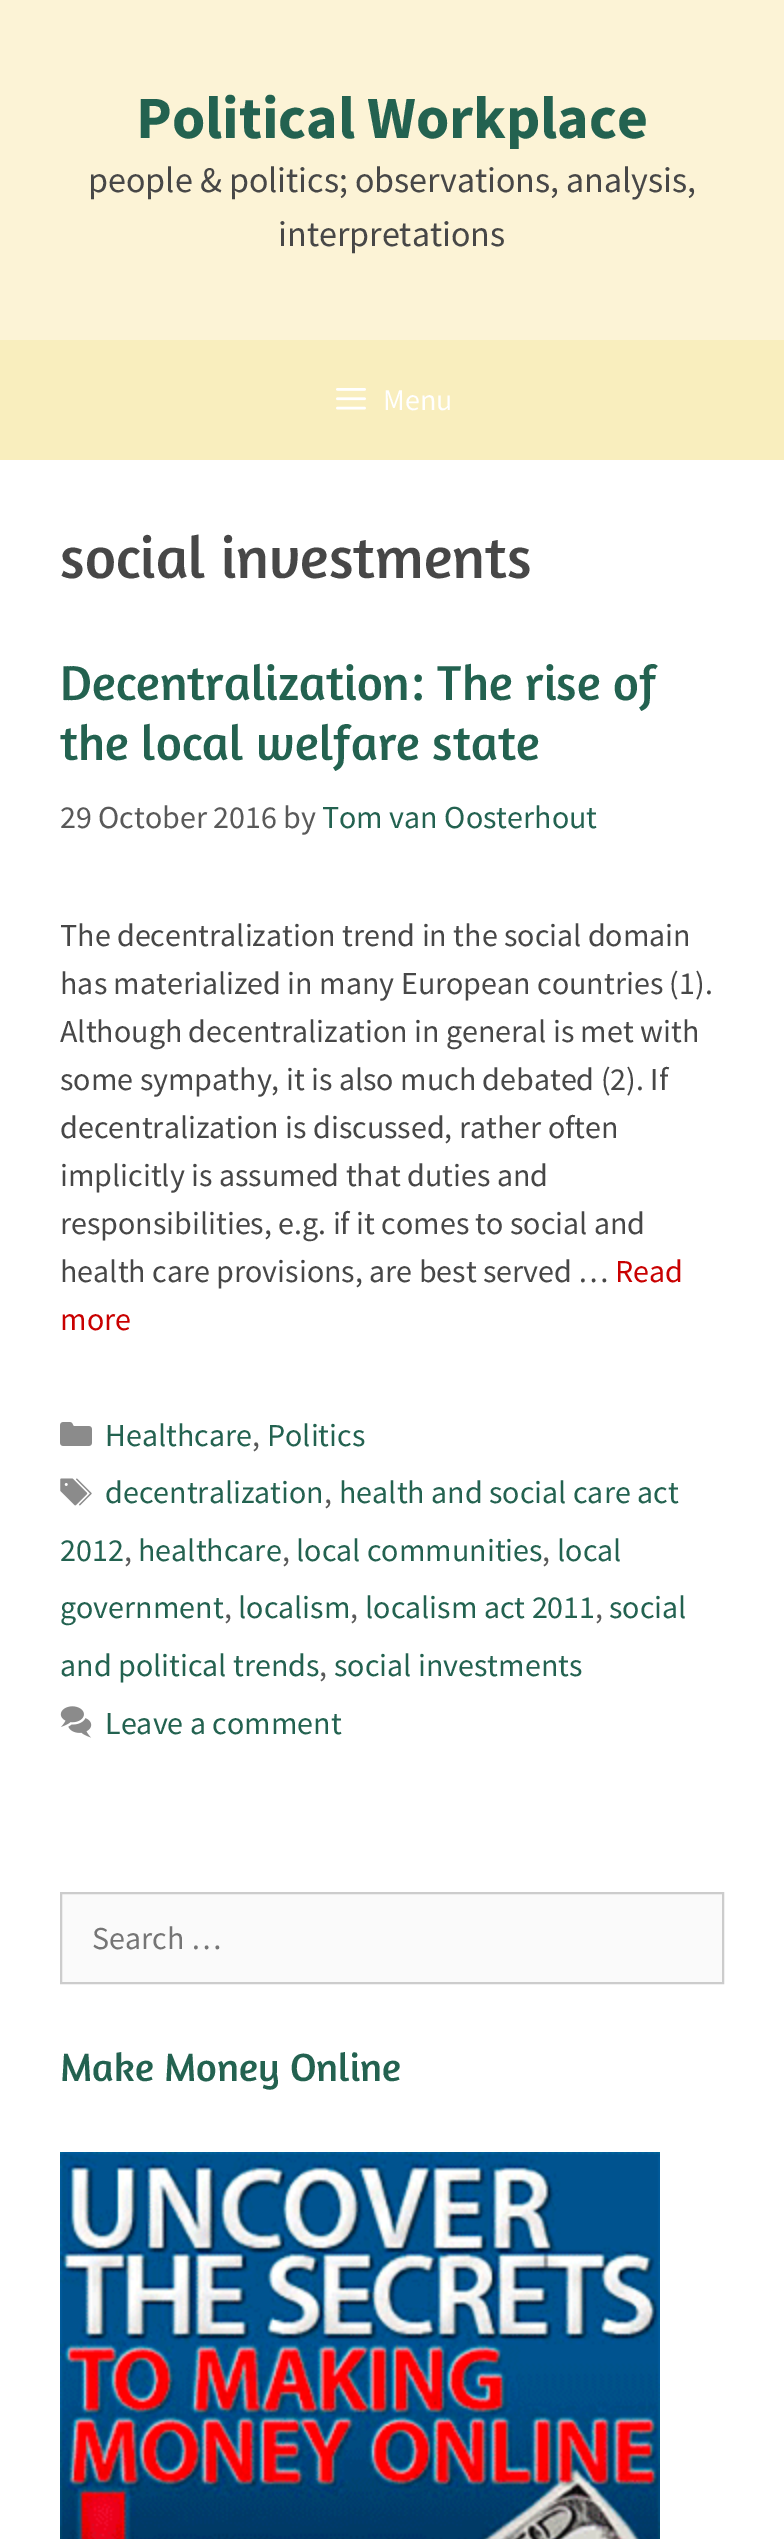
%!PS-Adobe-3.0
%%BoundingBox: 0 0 784 2539
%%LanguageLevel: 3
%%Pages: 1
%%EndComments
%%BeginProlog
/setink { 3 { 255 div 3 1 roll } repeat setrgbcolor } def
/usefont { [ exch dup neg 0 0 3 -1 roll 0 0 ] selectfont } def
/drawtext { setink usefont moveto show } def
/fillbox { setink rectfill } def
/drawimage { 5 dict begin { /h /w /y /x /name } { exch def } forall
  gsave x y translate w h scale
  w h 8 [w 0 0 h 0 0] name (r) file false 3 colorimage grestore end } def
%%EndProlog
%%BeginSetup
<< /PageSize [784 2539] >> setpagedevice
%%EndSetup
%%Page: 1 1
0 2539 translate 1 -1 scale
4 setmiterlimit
0 0 784 2539 255 255 255 fillbox
0 0 784 340 252 243 214 fillbox
(Political Workplace) 136 138 /SourceSansPro-Bold 60 35 98 80 drawtext
(people & politics; observations, analysis,) 88 192 /SourceSansPro-Regular 36 71 71 71 drawtext
(interpretations) 278 246 /SourceSansPro-Regular 36 71 71 71 drawtext
0 340 784 120 249 238 190 fillbox
(assets/img1.rgb) 336 388 30 22 drawimage
(Menu) 383 410 /SourceSansPro-Regular 30 255 255 255 drawtext
(social investments) 60 578 /Amaranth-Regular 60 71 71 71 drawtext
(Decentralization: The rise of) 60 700 /Amaranth-Regular 50 35 98 80 drawtext
(the local welfare state) 60 760 /Amaranth-Regular 50 35 98 80 drawtext
(29 October 2016 by) 60 828 /SourceSansPro-Regular 32 89 89 89 drawtext
(Tom van Oosterhout) 322 828 /SourceSansPro-Regular 32 35 98 80 drawtext
(The decentralization trend in the social domain) 60 946 /SourceSansPro-Regular 32 71 71 71 drawtext
(has materialized in many European countries \(1\).) 60 994 /SourceSansPro-Regular 32 71 71 71 drawtext
(Although decentralization in general is met with) 60 1042 /SourceSansPro-Regular 32 71 71 71 drawtext
(some sympathy, it is also much debated \(2\). If) 60 1090 /SourceSansPro-Regular 32 71 71 71 drawtext
(decentralization is discussed, rather often) 60 1138 /SourceSansPro-Regular 32 71 71 71 drawtext
(implicitly is assumed that duties and) 60 1186 /SourceSansPro-Regular 32 71 71 71 drawtext
(responsibilities, e.g. if it comes to social and) 60 1234 /SourceSansPro-Regular 32 71 71 71 drawtext
(health care provisions, are best served …) 60 1282 /SourceSansPro-Regular 32 71 71 71 drawtext
(Read) 615 1282 /SourceSansPro-Regular 32 201 0 0 drawtext
(more) 60 1330 /SourceSansPro-Regular 32 201 0 0 drawtext
(assets/img2.rgb) 60 1422 32 24 drawimage
(Healthcare) 105 1446 /SourceSansPro-Regular 32 35 98 80 drawtext
(,) 252 1446 /SourceSansPro-Regular 32 89 89 89 drawtext
(Politics) 267 1446 /SourceSansPro-Regular 32 35 98 80 drawtext
(assets/img3.rgb) 60 1478 32 28 drawimage
(decentralization) 105 1503 /SourceSansPro-Regular 32 35 98 80 drawtext
(,) 324 1503 /SourceSansPro-Regular 32 89 89 89 drawtext
(health and social care act) 339 1503 /SourceSansPro-Regular 32 35 98 80 drawtext
(2012) 60 1561 /SourceSansPro-Regular 32 35 98 80 drawtext
(,) 124 1561 /SourceSansPro-Regular 32 89 89 89 drawtext
(healthcare) 138 1561 /SourceSansPro-Regular 32 35 98 80 drawtext
(,) 282 1561 /SourceSansPro-Regular 32 89 89 89 drawtext
(local communities) 296 1561 /SourceSansPro-Regular 32 35 98 80 drawtext
(,) 542 1561 /SourceSansPro-Regular 32 89 89 89 drawtext
(local) 557 1561 /SourceSansPro-Regular 32 35 98 80 drawtext
(government) 60 1618 /SourceSansPro-Regular 32 35 98 80 drawtext
(,) 224 1618 /SourceSansPro-Regular 32 89 89 89 drawtext
(localism) 238 1618 /SourceSansPro-Regular 32 35 98 80 drawtext
(,) 350 1618 /SourceSansPro-Regular 32 89 89 89 drawtext
(localism act 2011) 365 1618 /SourceSansPro-Regular 32 35 98 80 drawtext
(,) 595 1618 /SourceSansPro-Regular 32 89 89 89 drawtext
(social) 609 1618 /SourceSansPro-Regular 32 35 98 80 drawtext
(and political trends) 60 1676 /SourceSansPro-Regular 32 35 98 80 drawtext
(,) 319 1676 /SourceSansPro-Regular 32 89 89 89 drawtext
(social investments) 334 1676 /SourceSansPro-Regular 32 35 98 80 drawtext
(assets/img4.rgb) 60 1706 32 32 drawimage
(Leave a comment) 105 1734 /SourceSansPro-Regular 32 35 98 80 drawtext
250 250 250 setink
61 1893 moveto 723 1893 lineto 723 1983 lineto 61 1983 lineto closepath gsave fill grestore
204 204 204 setink
2 setlinewidth
stroke
(Search …) 92 1949 /SourceSansPro-Regular 32 117 117 117 drawtext
(Make Money Online) 60 2081 /Amaranth-Regular 40 35 98 80 drawtext
(assets/img5.rgb) 60 2152 600 387 drawimage
showpage
%%EOF
